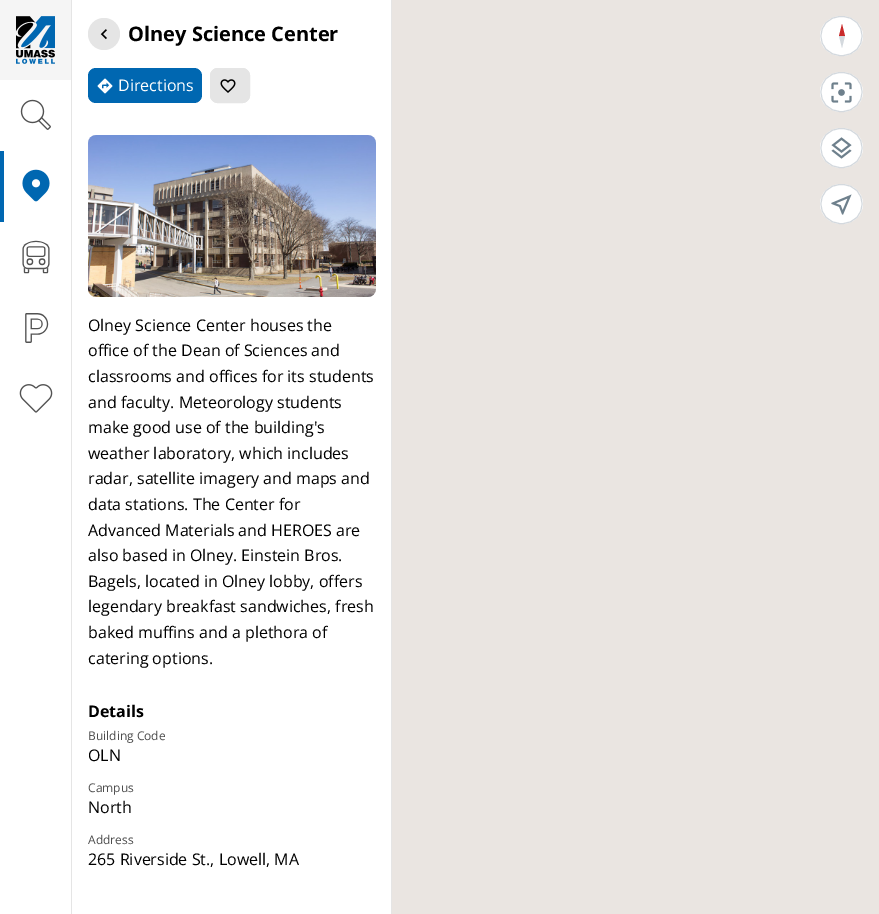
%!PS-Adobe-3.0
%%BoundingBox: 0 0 879 914
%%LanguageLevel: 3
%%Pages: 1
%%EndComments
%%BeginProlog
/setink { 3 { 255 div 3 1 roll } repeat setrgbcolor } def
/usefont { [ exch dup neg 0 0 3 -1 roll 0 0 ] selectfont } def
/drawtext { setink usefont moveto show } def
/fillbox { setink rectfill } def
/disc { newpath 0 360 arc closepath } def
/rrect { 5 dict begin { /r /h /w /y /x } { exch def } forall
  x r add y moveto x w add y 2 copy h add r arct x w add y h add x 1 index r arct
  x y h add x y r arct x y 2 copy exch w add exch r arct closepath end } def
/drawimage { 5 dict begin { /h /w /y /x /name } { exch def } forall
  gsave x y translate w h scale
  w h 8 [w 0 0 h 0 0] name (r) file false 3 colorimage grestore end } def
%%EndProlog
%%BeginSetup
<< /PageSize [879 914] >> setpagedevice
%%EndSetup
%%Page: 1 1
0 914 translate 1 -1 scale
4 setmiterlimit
0 0 879 914 255 255 255 fillbox
71 0 1 914 229 229 229 fillbox
0 0 71 80 245 245 245 fillbox
(assets/img1.rgb) 16 16 39 48 drawimage
(assets/img2.rgb) 20 99 31 31 drawimage
0 151 4 71 0 103 177 fillbox
(assets/img3.rgb) 22 169 28 33 drawimage
(assets/img4.rgb) 22 240 28 34 drawimage
(assets/img5.rgb) 25 313 24 30 drawimage
(assets/img6.rgb) 19 384 34 29 drawimage
391 0 1 914 229 229 229 fillbox
104 34 16 disc fill
(assets/img7.rgb) 100 29 7 11 drawimage
(Olney Science Center) 128 41 /OpenSans-Bold 20 0 0 0 drawtext
0 103 177 setink
88 68 114 35 8 rrect fill
(assets/img8.rgb) 97 78 16 16 drawimage
(Directions) 118 91 /OpenSans-Regular 16 255 255 255 drawtext
229 229 229 setink
210 68 40 35 8 rrect fill
(assets/img9.rgb) 220 79 16 14 drawimage
210.5 68.5 39 34 7.5 rrect stroke
233 233 233 setink
88 135 288 162 8 rrect fill
(assets/img10.rgb) 88 135 288 162 drawimage
(Olney Science Center houses the) 88 331 /OpenSans-Regular 16 0 0 0 drawtext
(office of the Dean of Sciences and) 88 356 /OpenSans-Regular 16 0 0 0 drawtext
(classrooms and offices for its students) 88 382 /OpenSans-Regular 16 0 0 0 drawtext
(and faculty. Meteorology students) 88 408 /OpenSans-Regular 16 0 0 0 drawtext
(make good use of the building's) 88 433 /OpenSans-Regular 16 0 0 0 drawtext
(weather laboratory, which includes) 88 459 /OpenSans-Regular 16 0 0 0 drawtext
(radar, satellite imagery and maps and) 88 484 /OpenSans-Regular 16 0 0 0 drawtext
(data stations. The Center for) 88 510 /OpenSans-Regular 16 0 0 0 drawtext
(Advanced Materials and HEROES are) 88 536 /OpenSans-Regular 16 0 0 0 drawtext
(also based in Olney. Einstein Bros.) 88 561 /OpenSans-Regular 16 0 0 0 drawtext
(Bagels, located in Olney lobby, offers) 88 587 /OpenSans-Regular 16 0 0 0 drawtext
(legendary breakfast sandwiches, fresh) 88 612 /OpenSans-Regular 16 0 0 0 drawtext
(baked muffins and a plethora of) 88 638 /OpenSans-Regular 16 0 0 0 drawtext
(catering options.) 88 664 /OpenSans-Regular 16 0 0 0 drawtext
(Details) 88 717 /OpenSans-Bold 16 0 0 0 drawtext
(Building Code) 88 740 /OpenSans-Regular 12 77 77 77 drawtext
(OLN) 88 761 /OpenSans-Regular 16 0 0 0 drawtext
(Campus) 88 792 /OpenSans-Regular 12 77 77 77 drawtext
(North) 88 813 /OpenSans-Regular 16 0 0 0 drawtext
(Address) 88 844 /OpenSans-Regular 12 77 77 77 drawtext
(265 Riverside St., Lowell, MA) 88 865 /OpenSans-Regular 16 0 0 0 drawtext
392 0 487 914 234 229 225 fillbox
255 255 255 setink
841.5 16 moveto 853.5 16 863 25 863 36 curveto 863 47 853.5 56 841.5 56 curveto 829.5 56 820 47 820 36 curveto 820 25 829.5 16 841.5 16 curveto closepath fill
201 42 42 setink
842 24 moveto 845 36 lineto 839 36 lineto closepath fill
212 217 222 setink
842 48 moveto 839 36 lineto 845 36 lineto closepath fill
841.5 16.5 moveto 869 16.5 869 55.5 841.5 55.5 curveto 814 55.5 814 16.5 841.5 16.5 curveto closepath stroke
255 255 255 setink
841.5 72 moveto 853.5 72 863 81 863 92 curveto 863 103 853.5 112 841.5 112 curveto 829.5 112 820 103 820 92 curveto 820 81 829.5 72 841.5 72 curveto closepath fill
(assets/img11.rgb) 831 82 21 21 drawimage
212 217 222 setink
841.5 72.5 moveto 869 72.5 869 111.5 841.5 111.5 curveto 814 111.5 814 72.5 841.5 72.5 curveto closepath stroke
255 255 255 setink
841.5 128 moveto 853.5 128 863 137 863 148 curveto 863 159 853.5 168 841.5 168 curveto 829.5 168 820 159 820 148 curveto 820 137 829.5 128 841.5 128 curveto closepath fill
(assets/img12.rgb) 831 137 21 22 drawimage
212 217 222 setink
841.5 128.5 moveto 869 128.5 869 167.5 841.5 167.5 curveto 814 167.5 814 128.5 841.5 128.5 curveto closepath stroke
255 255 255 setink
841.5 184 moveto 853.5 184 863 193 863 204 curveto 863 215 853.5 224 841.5 224 curveto 829.5 224 820 215 820 204 curveto 820 193 829.5 184 841.5 184 curveto closepath fill
(assets/img13.rgb) 831 194 21 21 drawimage
212 217 222 setink
841.5 184.5 moveto 869 184.5 869 223.5 841.5 223.5 curveto 814 223.5 814 184.5 841.5 184.5 curveto closepath stroke
showpage
%%EOF
